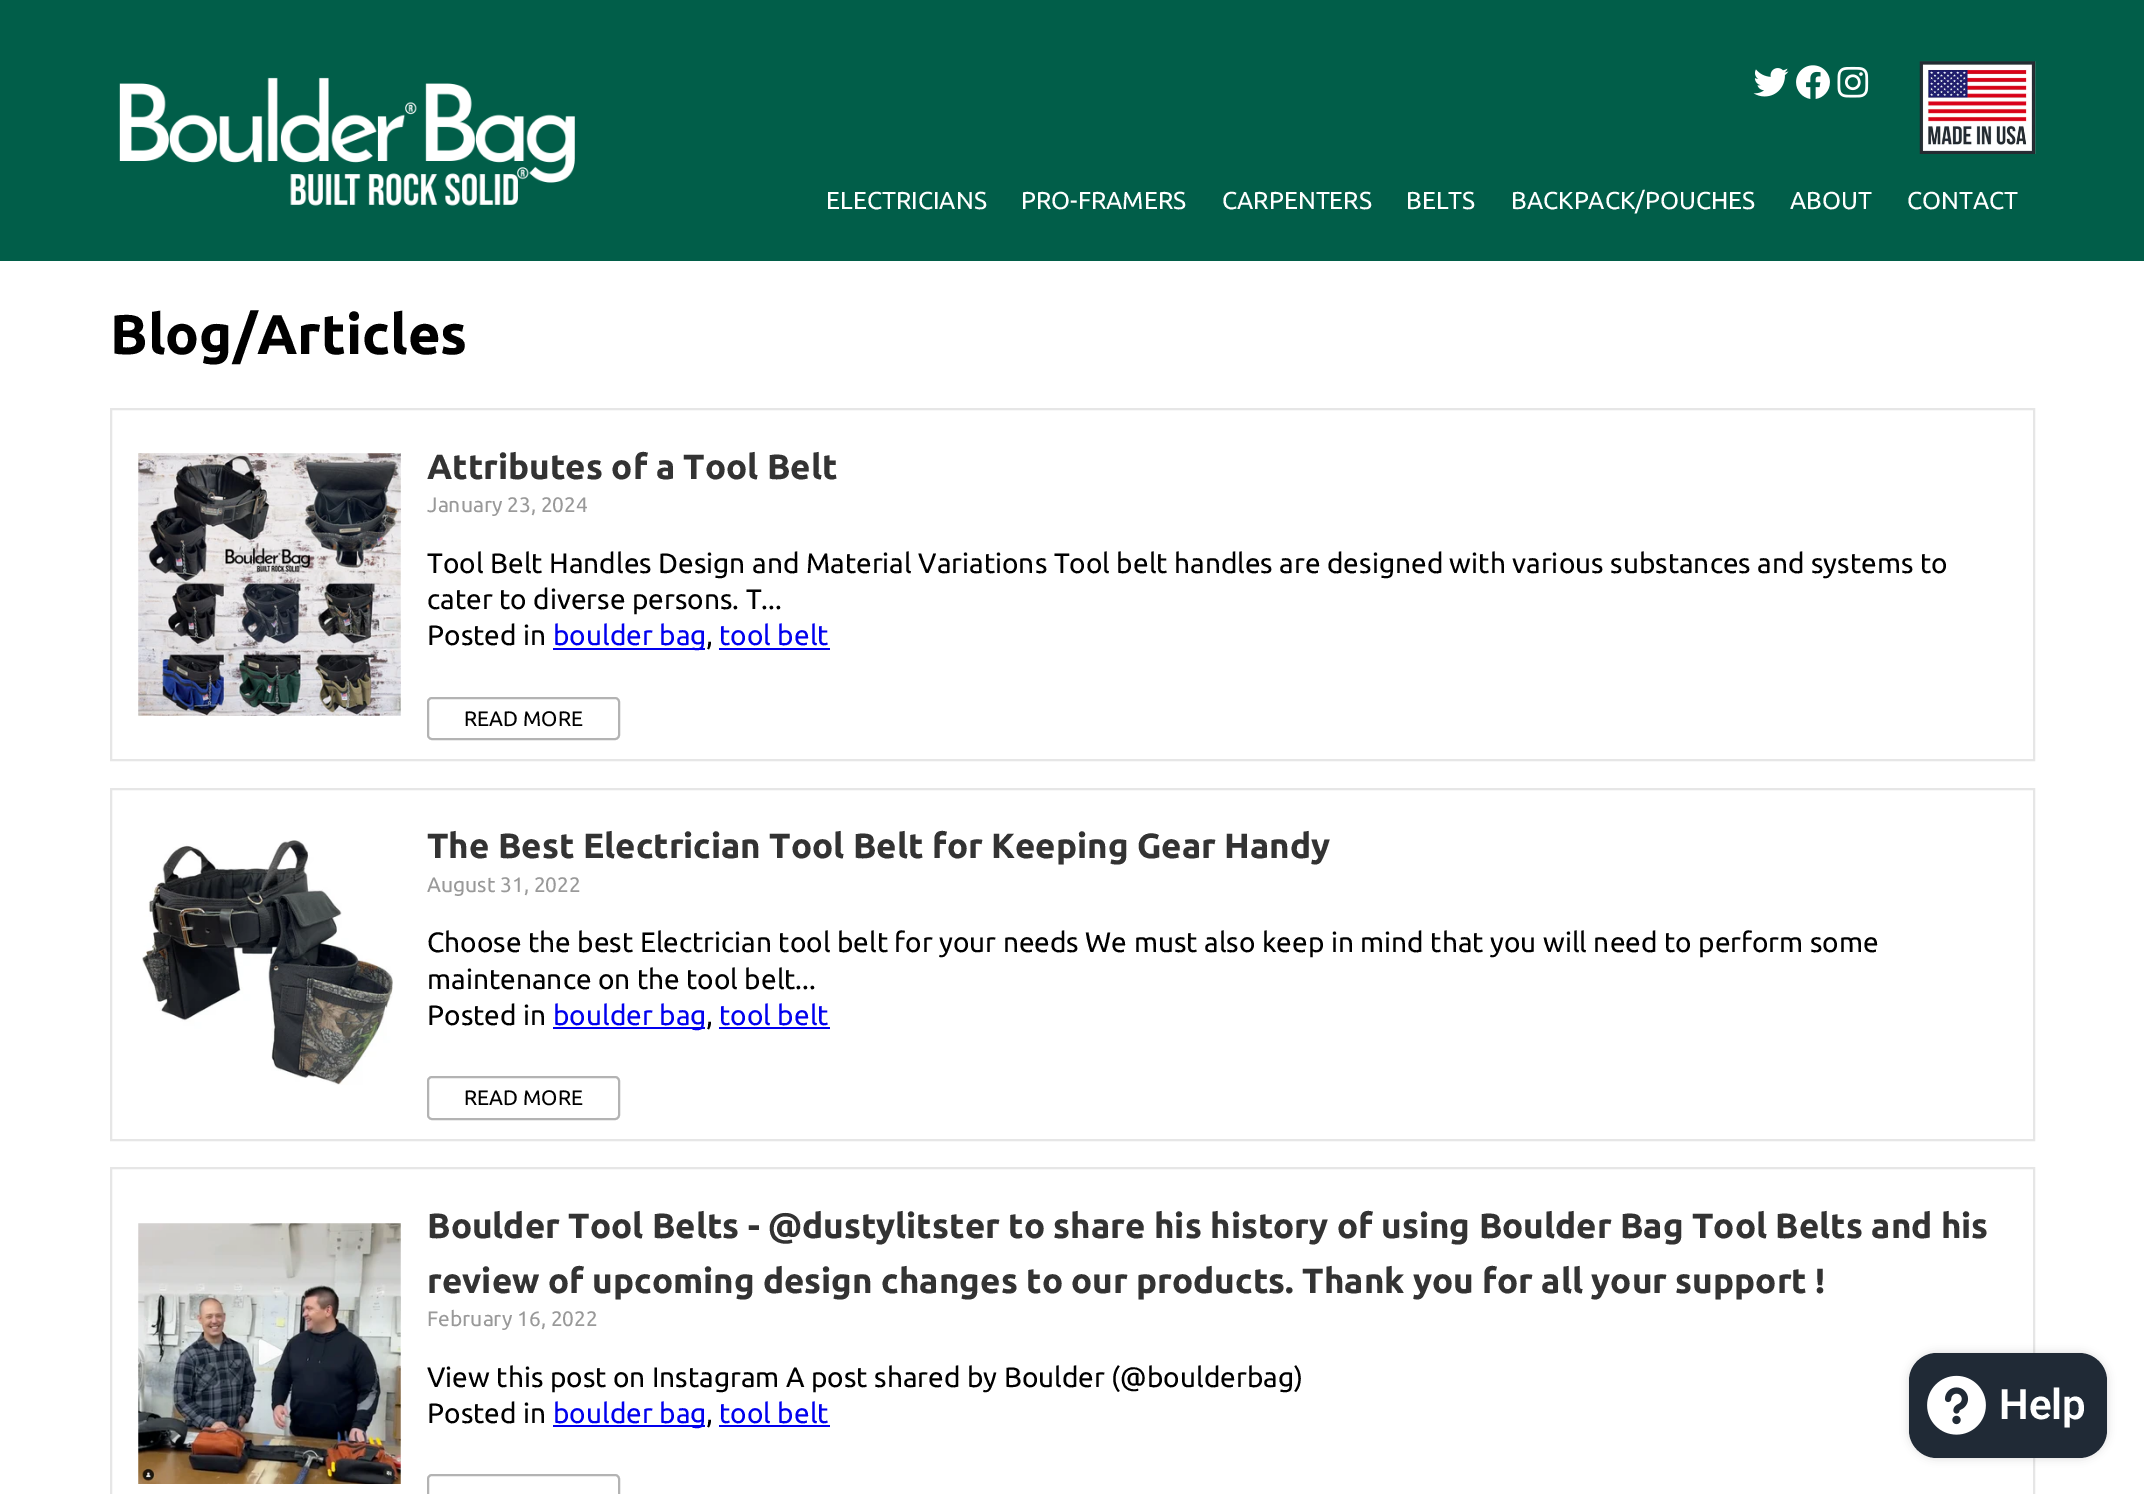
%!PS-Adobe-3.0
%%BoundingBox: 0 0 2144 1494
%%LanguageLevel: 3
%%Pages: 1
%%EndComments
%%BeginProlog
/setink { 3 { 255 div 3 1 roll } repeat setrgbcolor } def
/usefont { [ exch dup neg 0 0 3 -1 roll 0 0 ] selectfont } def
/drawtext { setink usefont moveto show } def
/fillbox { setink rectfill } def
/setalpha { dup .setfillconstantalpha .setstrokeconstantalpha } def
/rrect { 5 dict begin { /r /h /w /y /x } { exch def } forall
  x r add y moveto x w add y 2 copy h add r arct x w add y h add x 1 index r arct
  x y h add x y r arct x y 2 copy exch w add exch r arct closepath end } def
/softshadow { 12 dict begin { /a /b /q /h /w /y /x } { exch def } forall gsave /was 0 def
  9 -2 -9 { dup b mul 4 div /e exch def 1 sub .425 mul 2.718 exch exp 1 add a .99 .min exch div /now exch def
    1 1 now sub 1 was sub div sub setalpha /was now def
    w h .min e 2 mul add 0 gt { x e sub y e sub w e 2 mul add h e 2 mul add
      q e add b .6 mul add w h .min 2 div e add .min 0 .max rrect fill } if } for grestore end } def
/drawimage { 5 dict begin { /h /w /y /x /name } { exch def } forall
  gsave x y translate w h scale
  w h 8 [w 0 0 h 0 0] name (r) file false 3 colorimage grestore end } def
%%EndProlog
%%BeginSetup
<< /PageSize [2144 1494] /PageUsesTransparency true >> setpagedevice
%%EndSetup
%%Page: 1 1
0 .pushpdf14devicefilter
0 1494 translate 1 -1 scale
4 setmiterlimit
0 0 2144 1494 255 255 255 fillbox
0 0 2144 261 1 94 73 fillbox
(assets/img1.rgb) 119 77 456 129 drawimage
(assets/img2.rgb) 1753 68 36 29 drawimage
(assets/img3.rgb) 1796 65 34 34 drawimage
(assets/img4.rgb) 1837 66 32 32 drawimage
(assets/img5.rgb) 1919 61 117 93 drawimage
(ELECTRICIANS) 826 209 /Ubuntu-Regular 24.5 255 255 255 drawtext
(PRO-FRAMERS) 1021 209 /Ubuntu-Regular 24.5 255 255 255 drawtext
(CARPENTERS) 1222 209 /Ubuntu-Regular 24.5 255 255 255 drawtext
(BELTS) 1406 209 /Ubuntu-Regular 24.5 255 255 255 drawtext
(BACKPACK/POUCHES) 1511 209 /Ubuntu-Regular 24.5 255 255 255 drawtext
(ABOUT) 1790 209 /Ubuntu-Regular 24.5 255 255 255 drawtext
(CONTACT) 1907 209 /Ubuntu-Regular 24.5 255 255 255 drawtext
(Blog/Articles) 110 354 /Ubuntu-Bold 56 0 0 0 drawtext
230 230 230 setink
2 setlinewidth
111 409 1923 351 rectstroke
(assets/img6.rgb) 138 453 263 263 drawimage
(Attributes of a Tool Belt) 427 479 /Ubuntu-Bold 35 51 51 51 drawtext
(January 23, 2024) 427 512 /Ubuntu-Regular 21 153 153 153 drawtext
(Tool Belt Handles Design and Material Variations Tool belt handles are designed with various substances and systems to) 427 573 /Ubuntu-Regular 28 0 0 0 drawtext
(cater to diverse persons. T...) 427 609 /Ubuntu-Regular 28 0 0 0 drawtext
(Posted in) 427 645 /Ubuntu-Regular 28 0 0 0 drawtext
553 648 152 2 0 0 238 fillbox
(boulder bag) 553 645 /Ubuntu-Regular 28 0 0 238 drawtext
(,) 706 645 /Ubuntu-Regular 28 0 0 0 drawtext
(tool belt) 719 645 /Ubuntu-Regular 28 0 0 238 drawtext
719 648 111 2 0 0 238 fillbox
179 179 179 setink
428 698 191 41 4 rrect stroke
(READ MORE) 464 726 /Ubuntu-Regular 21 0 0 0 drawtext
230 230 230 setink
111 789 1923 351 rectstroke
(assets/img7.rgb) 142 840 251 245 drawimage
(The Best Electrician Tool Belt for Keeping Gear Handy) 427 858 /Ubuntu-Bold 35 51 51 51 drawtext
(August 31, 2022) 427 892 /Ubuntu-Regular 21 153 153 153 drawtext
(Choose the best Electrician tool belt for your needs We must also keep in mind that you will need to perform some) 427 952 /Ubuntu-Regular 28 0 0 0 drawtext
(maintenance on the tool belt...) 427 989 /Ubuntu-Regular 28 0 0 0 drawtext
(Posted in) 427 1025 /Ubuntu-Regular 28 0 0 0 drawtext
553 1027 152 2 0 0 238 fillbox
(boulder bag) 553 1025 /Ubuntu-Regular 28 0 0 238 drawtext
(,) 706 1025 /Ubuntu-Regular 28 0 0 0 drawtext
(tool belt) 719 1025 /Ubuntu-Regular 28 0 0 238 drawtext
719 1027 111 2 0 0 238 fillbox
179 179 179 setink
428 1077 191 42 4 rrect stroke
(READ MORE) 464 1105 /Ubuntu-Regular 21 0 0 0 drawtext
230 230 230 setink
111 1168 1923 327 rectstroke
(assets/img8.rgb) 138 1223 263 261 drawimage
(Boulder Tool Belts - @dustylitster to share his history of using Boulder Bag Tool Belts and his) 427 1238 /Ubuntu-Bold 35 51 51 51 drawtext
(review of upcoming design changes to our products. Thank you for all your support !) 427 1293 /Ubuntu-Bold 35 51 51 51 drawtext
(February 16, 2022) 427 1326 /Ubuntu-Regular 21 153 153 153 drawtext
(View this post on Instagram A post shared by Boulder \(@boulderbag\)) 427 1387 /Ubuntu-Regular 28 0 0 0 drawtext
(Posted in) 427 1423 /Ubuntu-Regular 28 0 0 0 drawtext
553 1425 152 2 0 0 238 fillbox
(boulder bag) 553 1423 /Ubuntu-Regular 28 0 0 238 drawtext
(,) 706 1423 /Ubuntu-Regular 28 0 0 0 drawtext
(tool belt) 719 1423 /Ubuntu-Regular 28 0 0 238 drawtext
719 1425 111 2 0 0 238 fillbox
179 179 179 setink
428 1475 191 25 4 rrect stroke
0 0 0 setink
1909 1353 198 105 28 4.5 0.15 softshadow
32 42 54 setink
1909 1353 198 105 28 rrect fill
(assets/img9.rgb) 1927 1375 59 60 drawimage
(Help) 1999 1419 /Roboto-SemiBold 42 255 255 255 drawtext
.poppdf14devicefilter showpage
%%EOF
